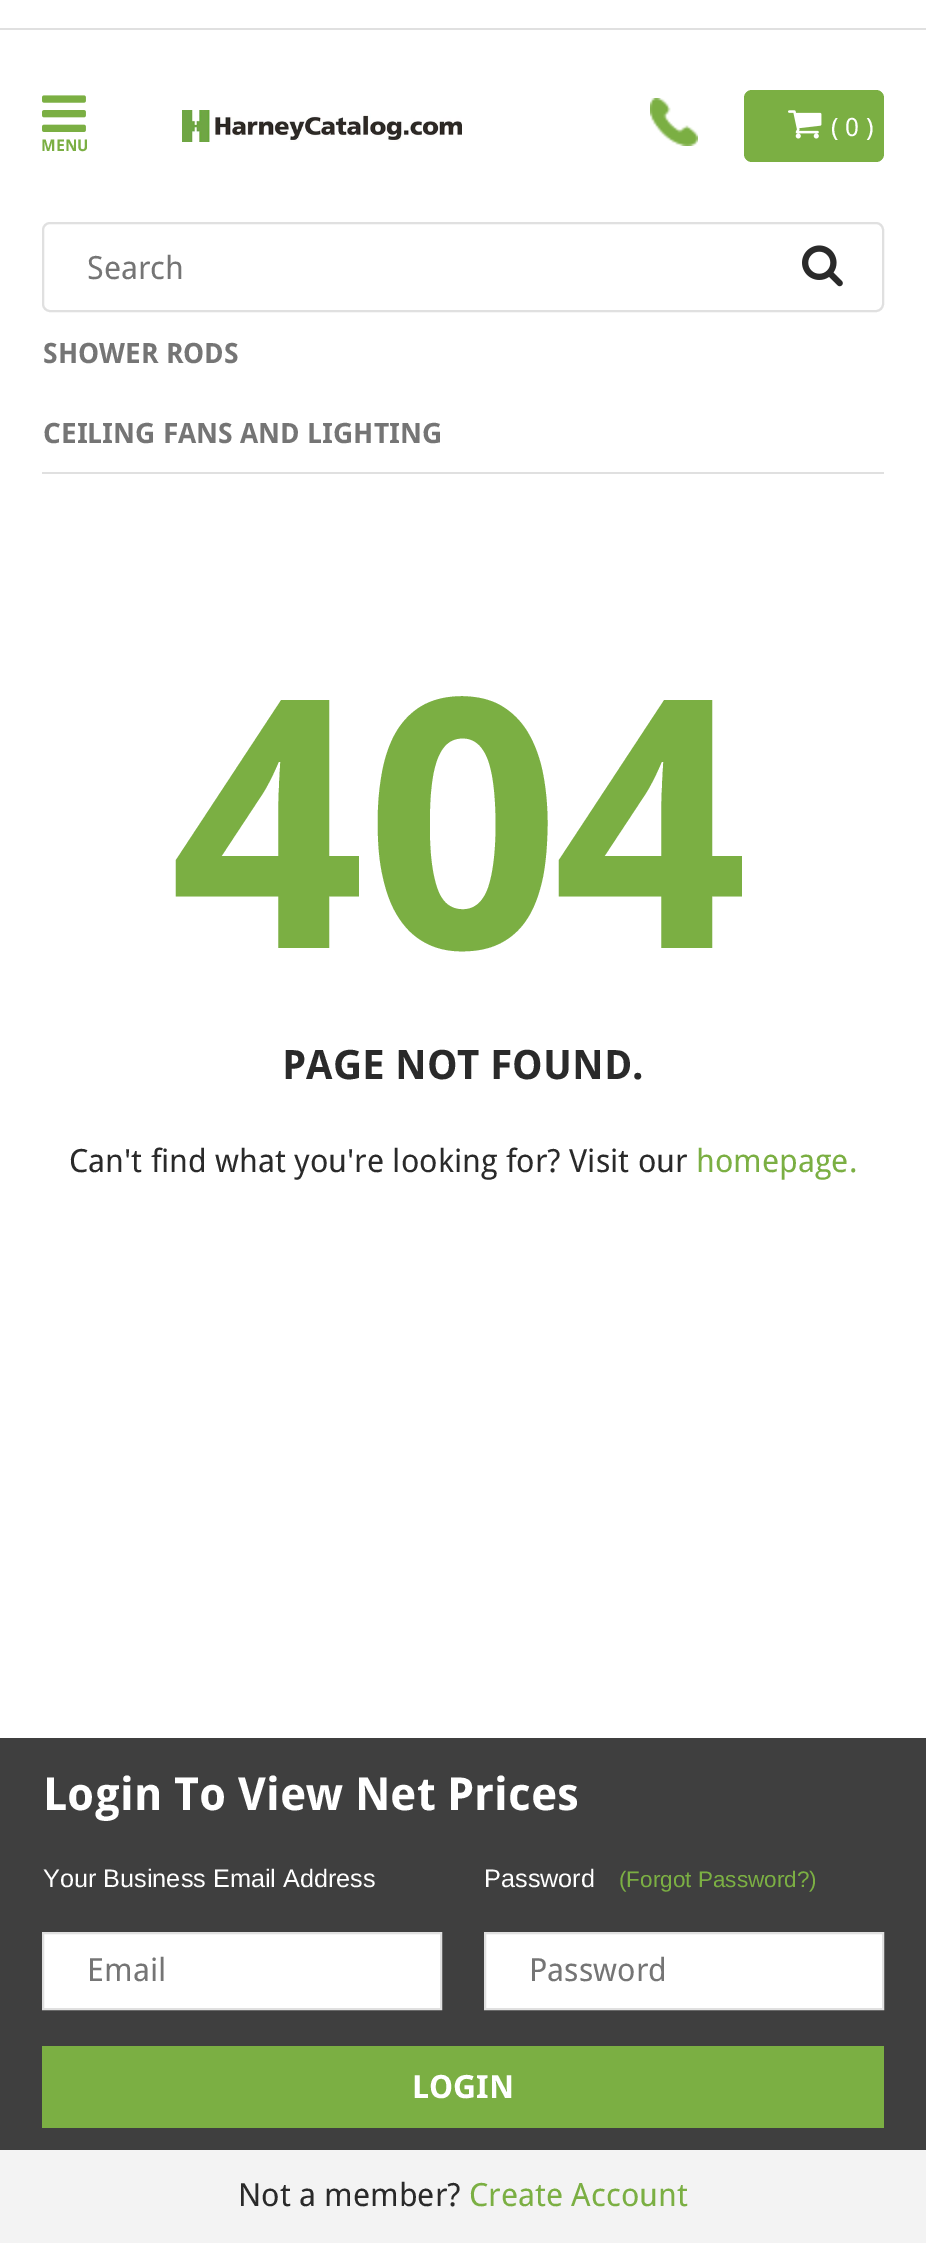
%!PS-Adobe-3.0
%%BoundingBox: 0 0 926 2243
%%LanguageLevel: 3
%%Pages: 1
%%EndComments
%%BeginProlog
/setink { 3 { 255 div 3 1 roll } repeat setrgbcolor } def
/usefont { [ exch dup neg 0 0 3 -1 roll 0 0 ] selectfont } def
/drawtext { setink usefont moveto show } def
/fillbox { setink rectfill } def
/rrect { 5 dict begin { /r /h /w /y /x } { exch def } forall
  x r add y moveto x w add y 2 copy h add r arct x w add y h add x 1 index r arct
  x y h add x y r arct x y 2 copy exch w add exch r arct closepath end } def
/drawimage { 5 dict begin { /h /w /y /x /name } { exch def } forall
  gsave x y translate w h scale
  w h 8 [w 0 0 h 0 0] name (r) file false 3 colorimage grestore end } def
%%EndProlog
%%BeginSetup
<< /PageSize [926 2243] >> setpagedevice
%%EndSetup
%%Page: 1 1
0 2243 translate 1 -1 scale
4 setmiterlimit
0 0 926 2243 255 255 255 fillbox
0 28 926 2 224 224 224 fillbox
(assets/img1.rgb) 182 110 280 32 drawimage
(assets/img2.rgb) 650 98 48 48 drawimage
123 175 67 setink
744 90 140 72 8 rrect fill
(assets/img3.rgb) 788 110 34 29 drawimage
(\( 0 \)) 831 136 /DroidSans-Regular 25.25 255 255 255 drawtext
(assets/img4.rgb) 42 95 44 37 drawimage
(MENU) 41 151 /DroidSans-Bold 16 123 175 67 drawtext
224 224 224 setink
2 setlinewidth
43 223 840 88 7 rrect stroke
(Search) 87 279 /DroidSans-Regular 32 117 117 117 drawtext
(assets/img5.rgb) 802 245 41 42 drawimage
42 472 842 2 224 224 224 fillbox
(SHOWER RODS) 43 363 /DroidSans-Bold 28 117 117 117 drawtext
(CEILING FANS AND LIGHTING) 43 443 /DroidSans-Bold 28 117 117 117 drawtext
(404) 175 948 /DroidSans-Bold 348 123 175 67 drawtext
(PAGE NOT FOUND.) 282 1079 /DroidSans-Bold 40.5 42 42 42 drawtext
(Can't find what you're looking for? Visit our) 69 1172 /DroidSans-Regular 32 42 42 42 drawtext
(homepage.) 696 1172 /DroidSans-Regular 32 123 175 67 drawtext
0 1738 926 412 63 63 63 fillbox
(Login To View Net Prices) 43 1810 /DroidSans-Bold 45.5 255 255 255 drawtext
(Your Business Email Address) 43 1887 /LiberationSans-Regular 25.25 255 255 255 drawtext
43 1933 moveto 441 1933 lineto 441 2009 lineto 43 2009 lineto closepath gsave fill grestore
224 224 224 setink
stroke
(Email) 87 1981 /DroidSans-Regular 32 117 117 117 drawtext
(Password) 484 1887 /LiberationSans-Regular 25.25 255 255 255 drawtext
(\(Forgot Password?\)) 619 1887 /LiberationSans-Regular 22.5 123 175 67 drawtext
255 255 255 setink
485 1933 moveto 883 1933 lineto 883 2009 lineto 485 2009 lineto closepath gsave fill grestore
224 224 224 setink
stroke
(Password) 529 1981 /DroidSans-Regular 32 117 117 117 drawtext
42 2046 842 82 123 175 67 fillbox
(LOGIN) 412 2098 /DroidSans-Bold 32 255 255 255 drawtext
0 2150 926 93 243 243 243 fillbox
(Not a member?) 238 2206 /DroidSans-Regular 32 42 42 42 drawtext
(Create Account) 469 2206 /DroidSans-Regular 32 123 175 67 drawtext
showpage
%%EOF
